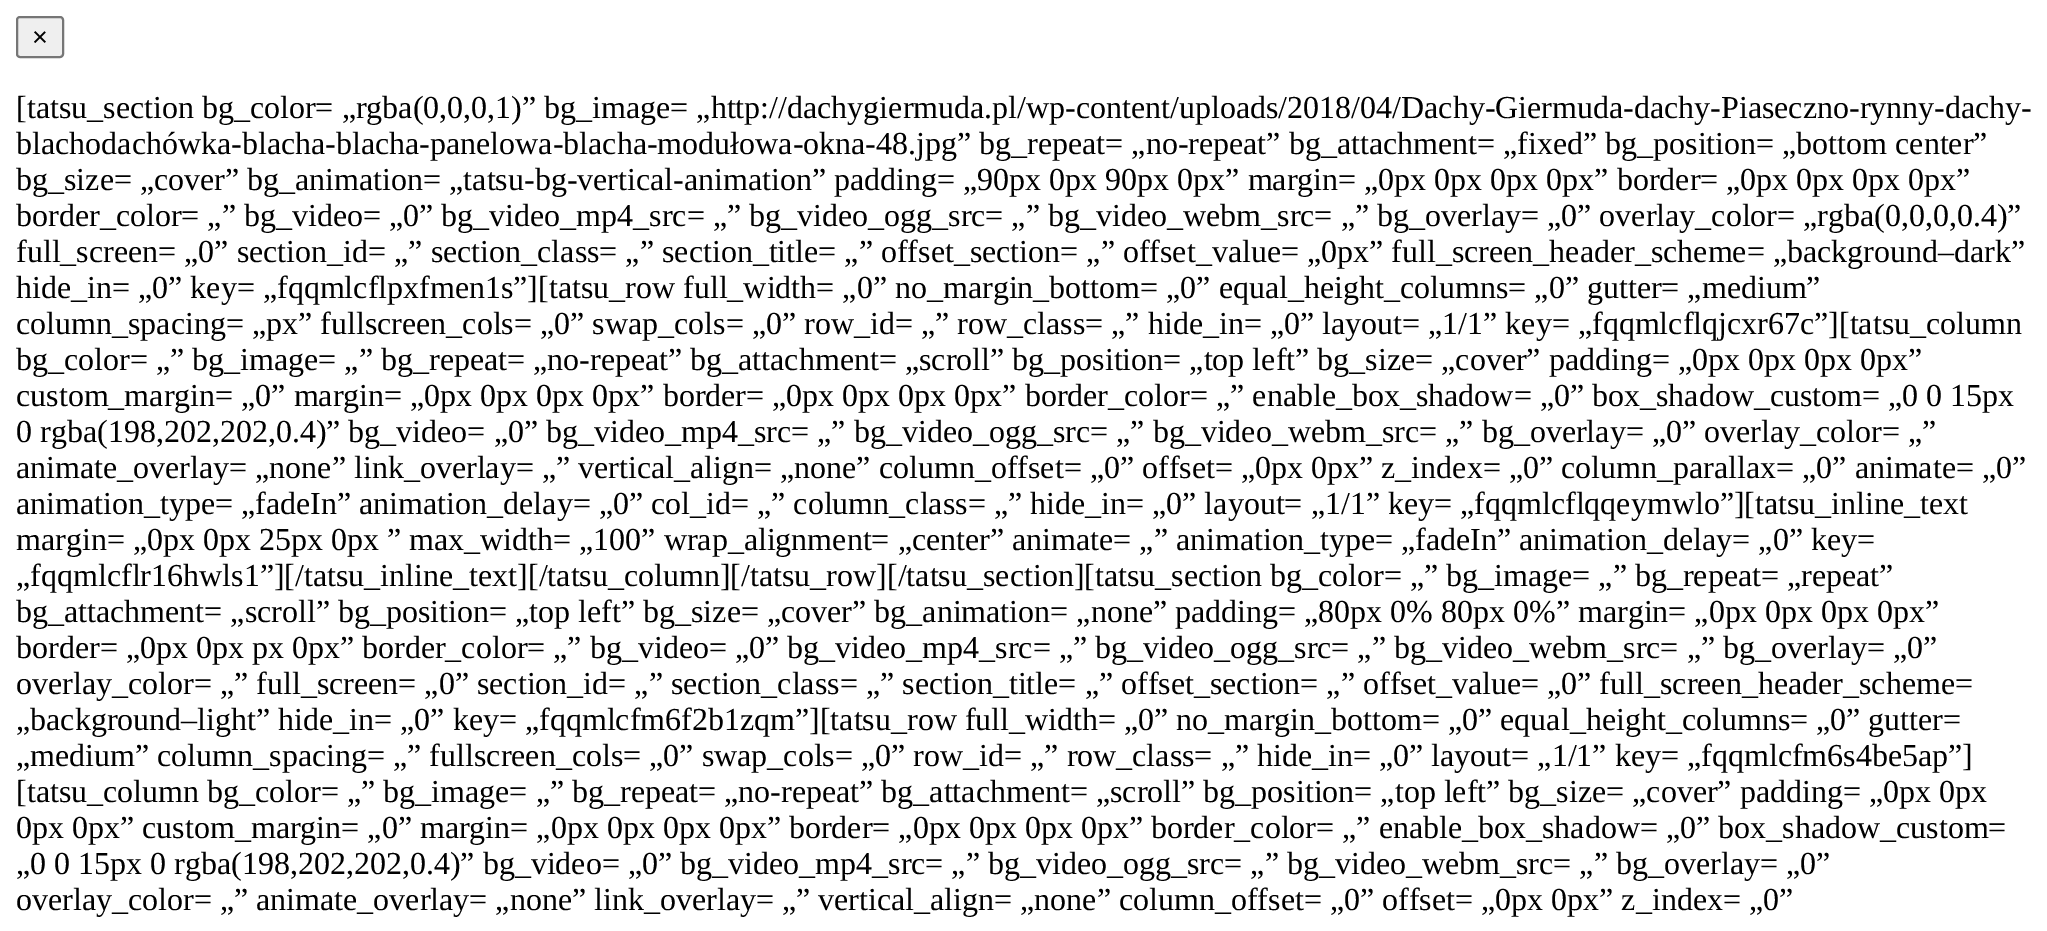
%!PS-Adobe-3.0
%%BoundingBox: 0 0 2047 931
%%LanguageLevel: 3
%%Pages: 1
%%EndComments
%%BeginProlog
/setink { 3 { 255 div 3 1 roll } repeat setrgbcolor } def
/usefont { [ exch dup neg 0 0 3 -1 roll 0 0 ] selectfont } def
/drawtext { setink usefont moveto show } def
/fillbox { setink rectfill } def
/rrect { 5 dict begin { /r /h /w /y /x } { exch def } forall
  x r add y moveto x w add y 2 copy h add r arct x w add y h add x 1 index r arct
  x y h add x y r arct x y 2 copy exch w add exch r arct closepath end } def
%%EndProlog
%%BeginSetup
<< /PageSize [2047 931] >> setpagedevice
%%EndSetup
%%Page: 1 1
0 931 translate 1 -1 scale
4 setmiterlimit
0 0 2047 931 255 255 255 fillbox
239 239 239 setink
17 17 46 40 3 rrect gsave fill grestore
118 118 118 setink
2 setlinewidth
stroke
(×) 32 46 /LiberationSans-Regular 27 0 0 0 drawtext
([tatsu_section bg_color= „rgba\(0,0,0,1\)” bg_image= „http://dachygiermuda.pl/wp-content/uploads/2018/04/Dachy-Giermuda-dachy-Piaseczno-rynny-dachy-) 16 118 /LiberationSerif-Regular 32 0 0 0 drawtext
(blachodachówka-blacha-blacha-panelowa-blacha-modułowa-okna-48.jpg” bg_repeat= „no-repeat” bg_attachment= „fixed” bg_position= „bottom center”) 16 154 /LiberationSerif-Regular 32 0 0 0 drawtext
(bg_size= „cover” bg_animation= „tatsu-bg-vertical-animation” padding= „90px 0px 90px 0px” margin= „0px 0px 0px 0px” border= „0px 0px 0px 0px”) 16 190 /LiberationSerif-Regular 32 0 0 0 drawtext
(border_color= „” bg_video= „0” bg_video_mp4_src= „” bg_video_ogg_src= „” bg_video_webm_src= „” bg_overlay= „0” overlay_color= „rgba\(0,0,0,0.4\)”) 16 226 /LiberationSerif-Regular 32 0 0 0 drawtext
(full_screen= „0” section_id= „” section_class= „” section_title= „” offset_section= „” offset_value= „0px” full_screen_header_scheme= „background–dark”) 16 262 /LiberationSerif-Regular 32 0 0 0 drawtext
(hide_in= „0” key= „fqqmlcflpxfmen1s”][tatsu_row full_width= „0” no_margin_bottom= „0” equal_height_columns= „0” gutter= „medium”) 16 298 /LiberationSerif-Regular 32 0 0 0 drawtext
(column_spacing= „px” fullscreen_cols= „0” swap_cols= „0” row_id= „” row_class= „” hide_in= „0” layout= „1/1” key= „fqqmlcflqjcxr67c”][tatsu_column) 16 334 /LiberationSerif-Regular 32 0 0 0 drawtext
(bg_color= „” bg_image= „” bg_repeat= „no-repeat” bg_attachment= „scroll” bg_position= „top left” bg_size= „cover” padding= „0px 0px 0px 0px”) 16 370 /LiberationSerif-Regular 32 0 0 0 drawtext
(custom_margin= „0” margin= „0px 0px 0px 0px” border= „0px 0px 0px 0px” border_color= „” enable_box_shadow= „0” box_shadow_custom= „0 0 15px) 16 406 /LiberationSerif-Regular 32 0 0 0 drawtext
(0 rgba\(198,202,202,0.4\)” bg_video= „0” bg_video_mp4_src= „” bg_video_ogg_src= „” bg_video_webm_src= „” bg_overlay= „0” overlay_color= „”) 16 442 /LiberationSerif-Regular 32 0 0 0 drawtext
(animate_overlay= „none” link_overlay= „” vertical_align= „none” column_offset= „0” offset= „0px 0px” z_index= „0” column_parallax= „0” animate= „0”) 16 478 /LiberationSerif-Regular 32 0 0 0 drawtext
(animation_type= „fadeIn” animation_delay= „0” col_id= „” column_class= „” hide_in= „0” layout= „1/1” key= „fqqmlcflqqeymwlo”][tatsu_inline_text) 16 514 /LiberationSerif-Regular 32 0 0 0 drawtext
(margin= „0px 0px 25px 0px ” max_width= „100” wrap_alignment= „center” animate= „” animation_type= „fadeIn” animation_delay= „0” key=) 16 550 /LiberationSerif-Regular 32 0 0 0 drawtext
(„fqqmlcflr16hwls1”][/tatsu_inline_text][/tatsu_column][/tatsu_row][/tatsu_section][tatsu_section bg_color= „” bg_image= „” bg_repeat= „repeat”) 16 586 /LiberationSerif-Regular 32 0 0 0 drawtext
(bg_attachment= „scroll” bg_position= „top left” bg_size= „cover” bg_animation= „none” padding= „80px 0% 80px 0%” margin= „0px 0px 0px 0px”) 16 622 /LiberationSerif-Regular 32 0 0 0 drawtext
(border= „0px 0px px 0px” border_color= „” bg_video= „0” bg_video_mp4_src= „” bg_video_ogg_src= „” bg_video_webm_src= „” bg_overlay= „0”) 16 658 /LiberationSerif-Regular 32 0 0 0 drawtext
(overlay_color= „” full_screen= „0” section_id= „” section_class= „” section_title= „” offset_section= „” offset_value= „0” full_screen_header_scheme=) 16 694 /LiberationSerif-Regular 32 0 0 0 drawtext
(„background–light” hide_in= „0” key= „fqqmlcfm6f2b1zqm”][tatsu_row full_width= „0” no_margin_bottom= „0” equal_height_columns= „0” gutter=) 16 730 /LiberationSerif-Regular 32 0 0 0 drawtext
(„medium” column_spacing= „” fullscreen_cols= „0” swap_cols= „0” row_id= „” row_class= „” hide_in= „0” layout= „1/1” key= „fqqmlcfm6s4be5ap”]) 16 766 /LiberationSerif-Regular 32 0 0 0 drawtext
([tatsu_column bg_color= „” bg_image= „” bg_repeat= „no-repeat” bg_attachment= „scroll” bg_position= „top left” bg_size= „cover” padding= „0px 0px) 16 802 /LiberationSerif-Regular 32 0 0 0 drawtext
(0px 0px” custom_margin= „0” margin= „0px 0px 0px 0px” border= „0px 0px 0px 0px” border_color= „” enable_box_shadow= „0” box_shadow_custom=) 16 838 /LiberationSerif-Regular 32 0 0 0 drawtext
(„0 0 15px 0 rgba\(198,202,202,0.4\)” bg_video= „0” bg_video_mp4_src= „” bg_video_ogg_src= „” bg_video_webm_src= „” bg_overlay= „0”) 16 874 /LiberationSerif-Regular 32 0 0 0 drawtext
(overlay_color= „” animate_overlay= „none” link_overlay= „” vertical_align= „none” column_offset= „0” offset= „0px 0px” z_index= „0”) 16 910 /LiberationSerif-Regular 32 0 0 0 drawtext
showpage
%%EOF
